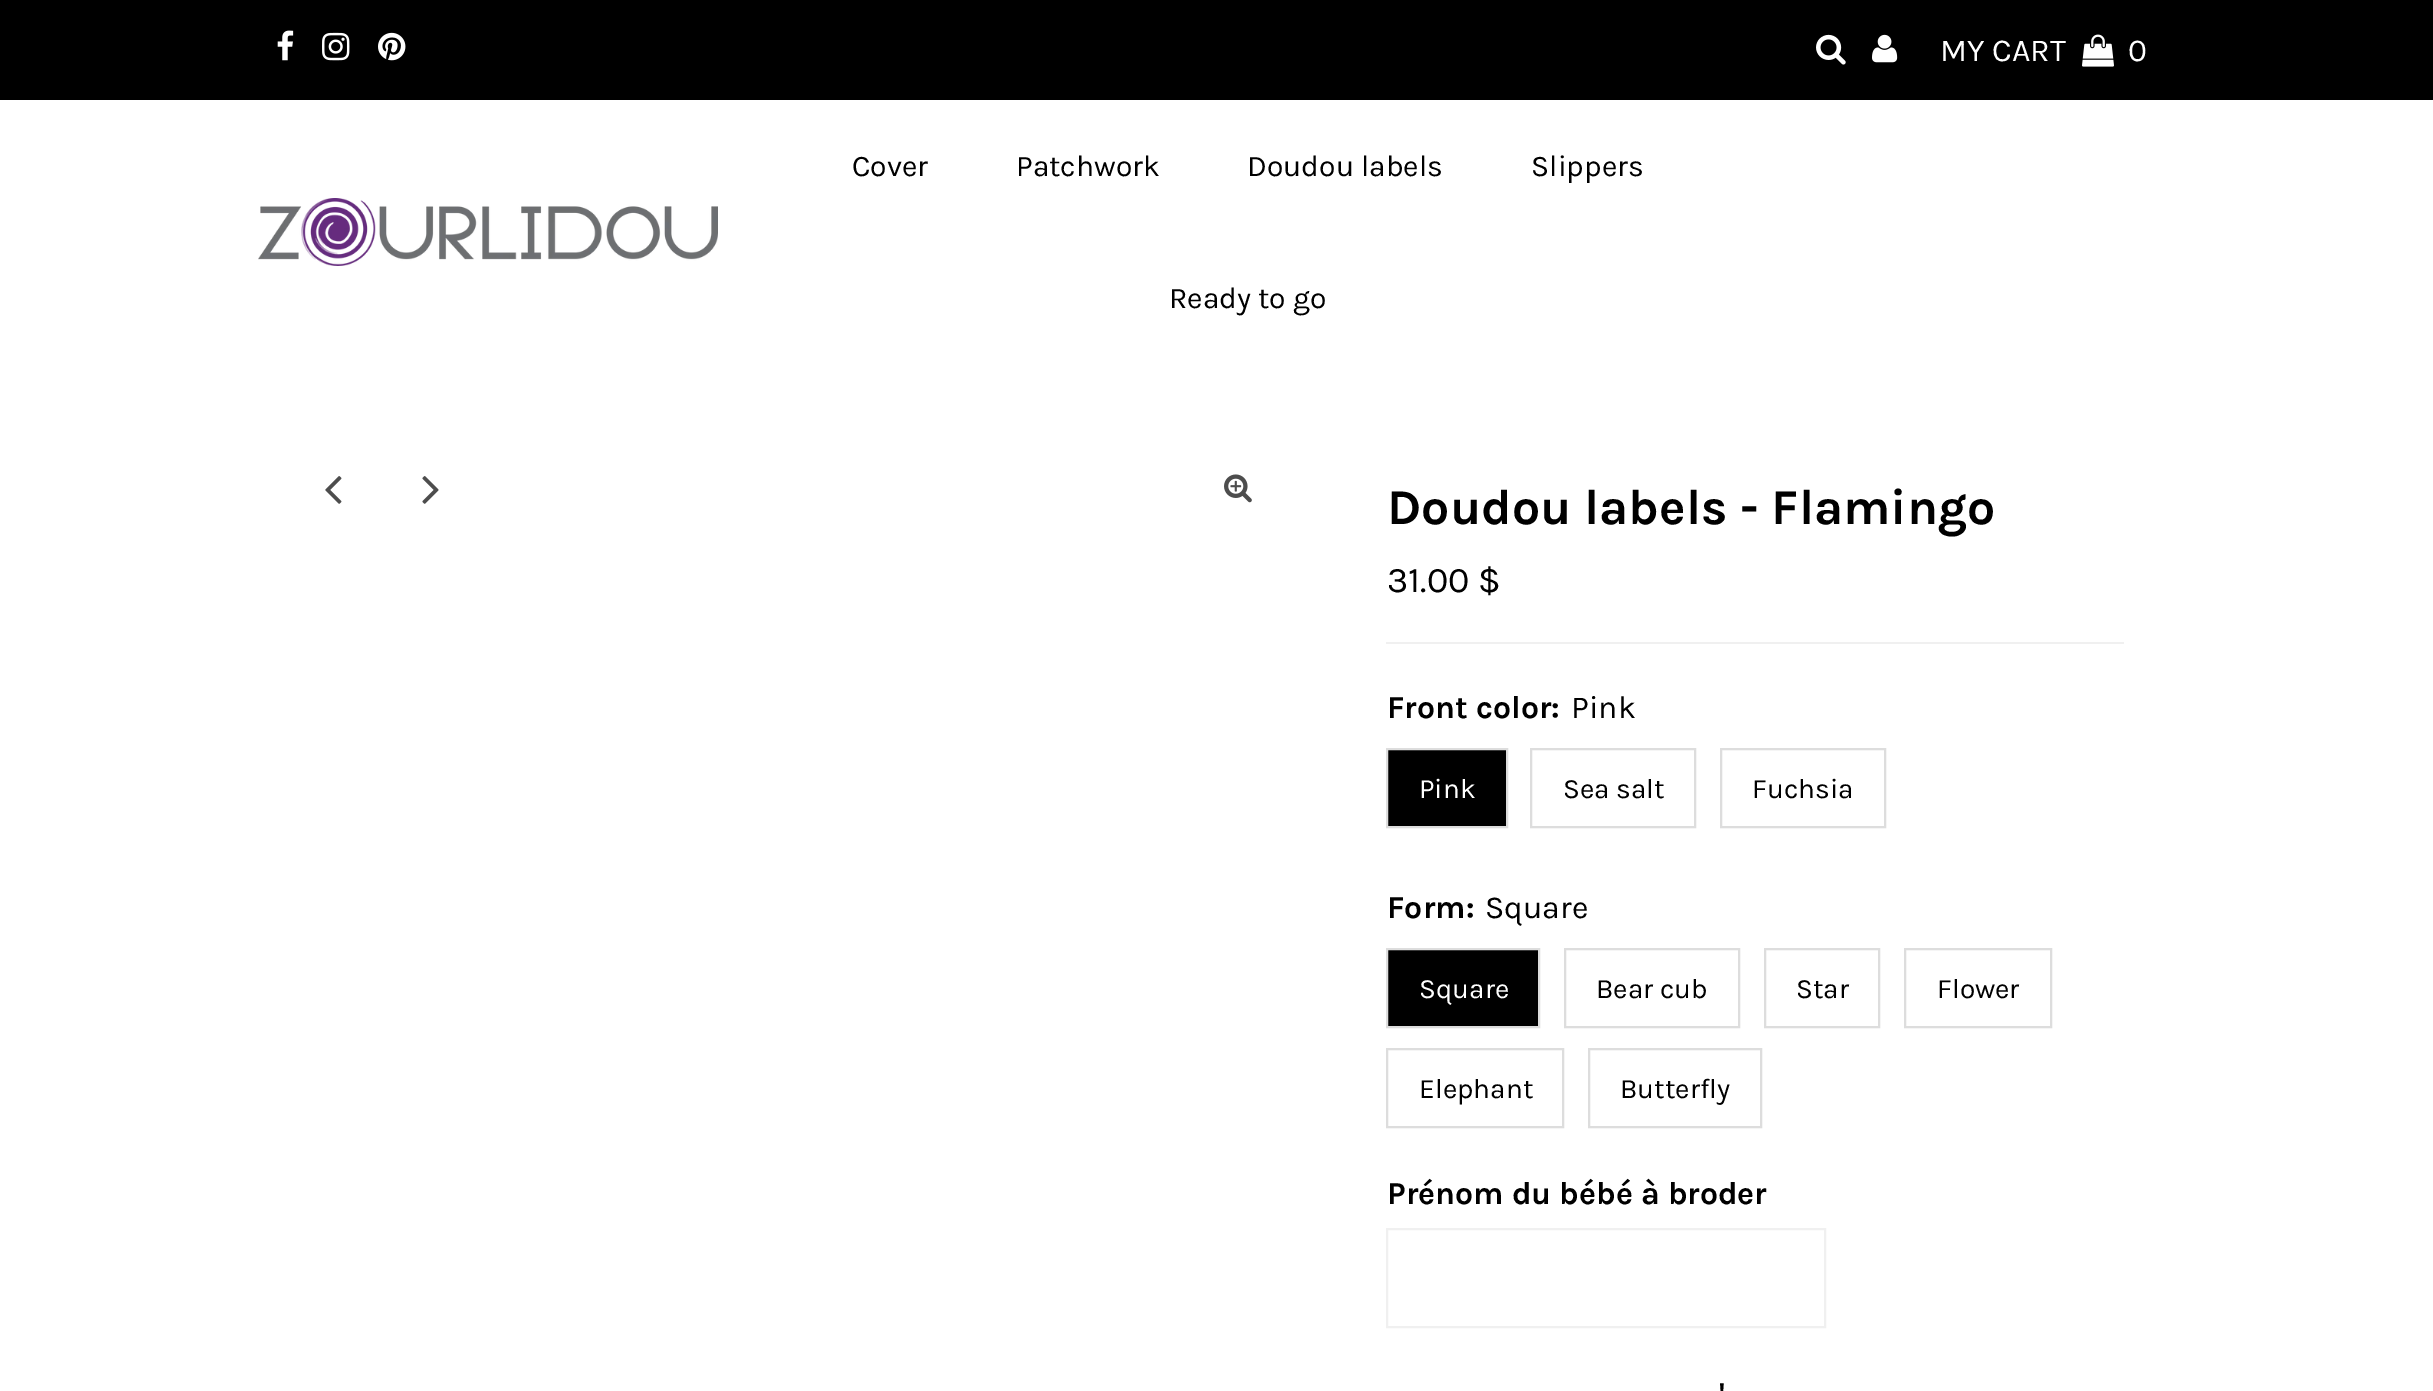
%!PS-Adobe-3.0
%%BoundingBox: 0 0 2433 1391
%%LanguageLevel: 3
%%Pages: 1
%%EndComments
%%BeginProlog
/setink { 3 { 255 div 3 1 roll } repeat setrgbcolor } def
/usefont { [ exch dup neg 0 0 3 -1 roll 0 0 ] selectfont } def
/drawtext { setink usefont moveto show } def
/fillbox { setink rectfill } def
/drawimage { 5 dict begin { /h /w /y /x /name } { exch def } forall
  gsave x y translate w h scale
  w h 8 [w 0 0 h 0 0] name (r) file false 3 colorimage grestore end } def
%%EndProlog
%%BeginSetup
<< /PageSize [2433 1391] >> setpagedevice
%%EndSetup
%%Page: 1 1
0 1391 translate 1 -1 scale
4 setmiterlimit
0 0 2433 1391 255 255 255 fillbox
0 0 2433 100 0 0 0 fillbox
(assets/img1.rgb) 277 30 17 31 drawimage
(assets/img2.rgb) 322 32 28 29 drawimage
(assets/img3.rgb) 378 32 28 29 drawimage
(assets/img4.rgb) 1816 34 30 31 drawimage
(assets/img5.rgb) 1872 34 26 29 drawimage
(MY CART) 1940 61 /Karla-Regular 32 255 255 255 drawtext
(assets/img6.rgb) 2082 34 32 33 drawimage
(0) 2128 61 /Karla-Regular 32 255 255 255 drawtext
(assets/img7.rgb) 258 198 460 68 drawimage
(Cover) 852 176 /Karla-Regular 30 0 0 0 drawtext
(Patchwork) 1016 176 /Karla-Regular 30 0 0 0 drawtext
(Doudou labels) 1247 176 /Karla-Regular 30 0 0 0 drawtext
(Slippers) 1531 176 /Karla-Regular 30 0 0 0 drawtext
(Ready to go) 1169 308 /Karla-Regular 30 0 0 0 drawtext
(assets/img8.rgb) 325 476 17 28 drawimage
(assets/img9.rgb) 422 476 17 28 drawimage
(assets/img10.rgb) 1224 474 28 29 drawimage
(Doudou labels - Flamingo) 1387 524 /Karla-Bold 50 0 0 0 drawtext
1386 642 738 2 240 240 240 fillbox
(31.00 $) 1387 592 /Karla-Regular 36 0 0 0 drawtext
(Front color:) 1387 718 /Karla-Bold 32 0 0 0 drawtext
(Pink) 1571 718 /Karla-Regular 32 0 0 0 drawtext
1387 749 moveto 1507 749 lineto 1507 827 lineto 1387 827 lineto closepath gsave fill grestore
221 221 221 setink
2 setlinewidth
stroke
(Pink) 1419 798 /Karla-Regular 28 255 255 255 drawtext
221 221 221 setink
1531 749 164 78 rectstroke
(Sea salt) 1563 798 /Karla-Regular 28 0 0 0 drawtext
221 221 221 setink
1721 749 164 78 rectstroke
(Fuchsia) 1752 798 /Karla-Regular 28 0 0 0 drawtext
(Form:) 1387 918 /Karla-Bold 32 0 0 0 drawtext
(Square) 1485 918 /Karla-Regular 32 0 0 0 drawtext
1387 949 moveto 1539 949 lineto 1539 1027 lineto 1387 1027 lineto closepath gsave fill grestore
221 221 221 setink
stroke
(Square) 1419 998 /Karla-Regular 28 255 255 255 drawtext
221 221 221 setink
1565 949 174 78 rectstroke
(Bear cub) 1596 998 /Karla-Regular 28 0 0 0 drawtext
221 221 221 setink
1765 949 114 78 rectstroke
(Star) 1796 998 /Karla-Regular 28 0 0 0 drawtext
221 221 221 setink
1905 949 146 78 rectstroke
(Flower) 1937 998 /Karla-Regular 28 0 0 0 drawtext
221 221 221 setink
1387 1049 176 78 rectstroke
(Elephant) 1419 1098 /Karla-Regular 28 0 0 0 drawtext
221 221 221 setink
1589 1049 172 78 rectstroke
(Butterfly) 1620 1098 /Karla-Regular 28 0 0 0 drawtext
(Prénom du bébé à broder) 1387 1204 /Karla-Bold 32 0 0 0 drawtext
240 240 240 setink
1387 1229 438 98 rectstroke
(') 1719 1405 /Karla-Bold 32 0 0 0 drawtext
showpage
%%EOF
